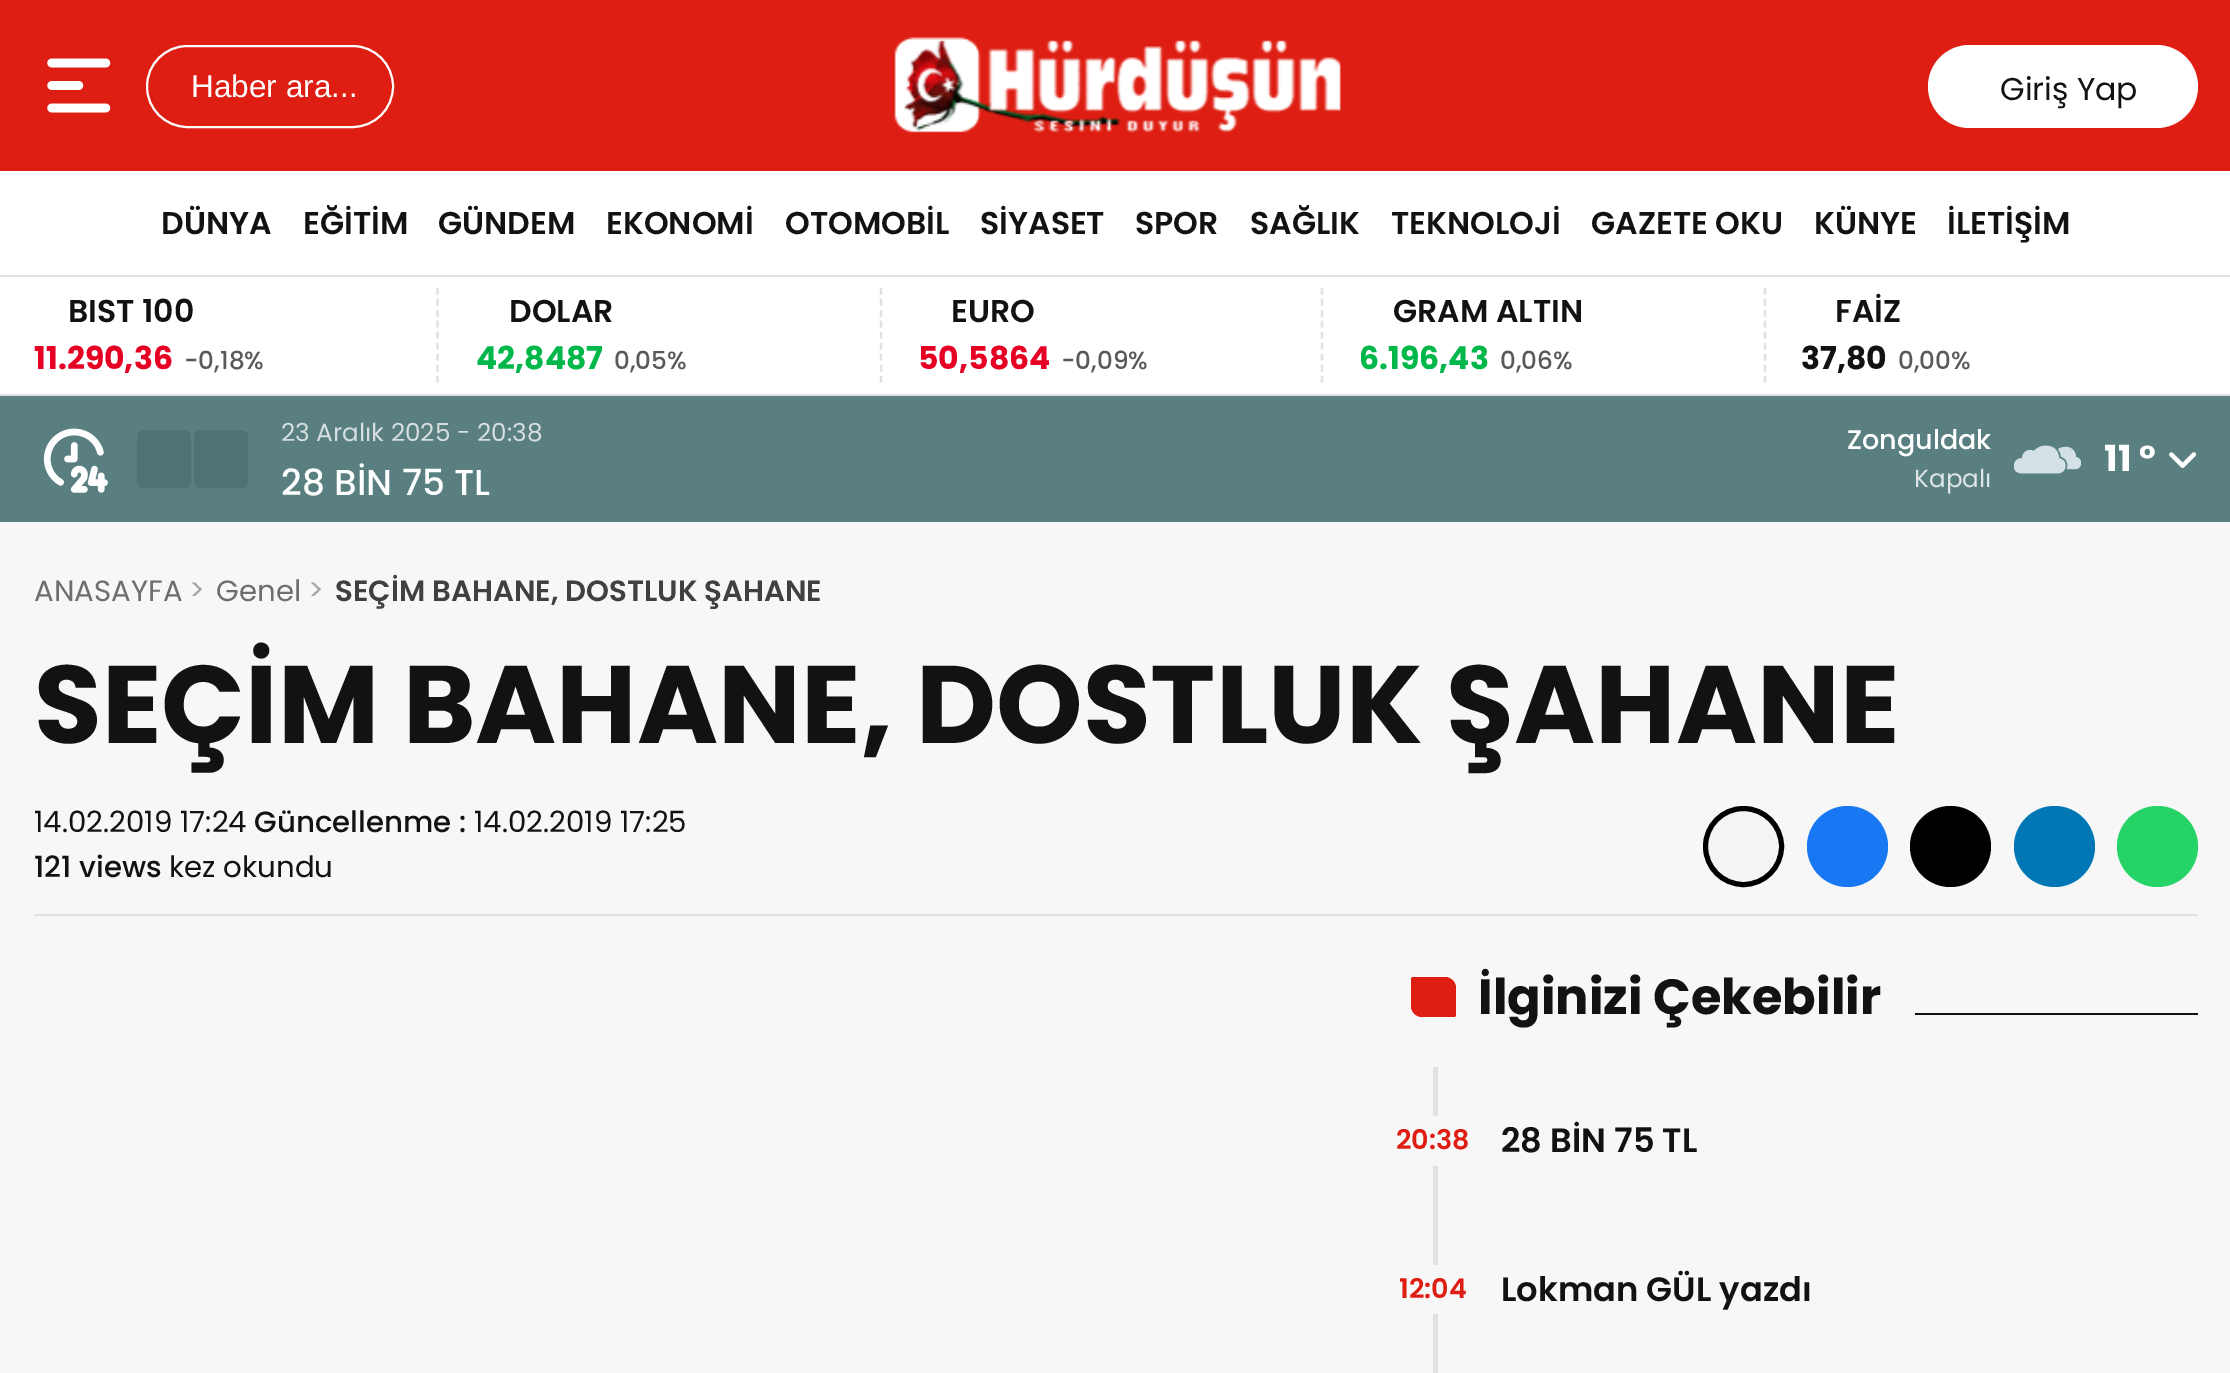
%!PS-Adobe-3.0
%%BoundingBox: 0 0 2230 1373
%%LanguageLevel: 3
%%Pages: 1
%%EndComments
%%BeginProlog
/setink { 3 { 255 div 3 1 roll } repeat setrgbcolor } def
/usefont { [ exch dup neg 0 0 3 -1 roll 0 0 ] selectfont } def
/drawtext { setink usefont moveto show } def
/fillbox { setink rectfill } def
/disc { newpath 0 360 arc closepath } def
/rrect { 5 dict begin { /r /h /w /y /x } { exch def } forall
  x r add y moveto x w add y 2 copy h add r arct x w add y h add x 1 index r arct
  x y h add x y r arct x y 2 copy exch w add exch r arct closepath end } def
/drawimage { 5 dict begin { /h /w /y /x /name } { exch def } forall
  gsave x y translate w h scale
  w h 8 [w 0 0 h 0 0] name (r) file false 3 colorimage grestore end } def
%%EndProlog
%%BeginSetup
<< /PageSize [2230 1373] >> setpagedevice
%%EndSetup
%%Page: 1 1
0 1373 translate 1 -1 scale
4 setmiterlimit
0 0 2230 1373 247 247 247 fillbox
0 0 2230 171 222 30 18 fillbox
(assets/img1.rgb) 47 58 64 55 drawimage
255 255 255 setink
2 setlinewidth
147 46 246 81 40.5 rrect stroke
(Haber ara...) 191 97 /LiberationSans-Regular 31.5 255 255 255 drawtext
(assets/img2.rgb) 894 37 447 96 drawimage
1928 45 270 83 41.5 rrect fill
(Giriş Yap) 2000 100 /Poppins-Regular 31.5 18 18 18 drawtext
0 171 2230 104 255 255 255 fillbox
0 275 2230 2 225 225 225 fillbox
(DÜNYA) 161 234 /Poppins-SemiBold 31.5 18 18 18 drawtext
(EĞİTİM) 303 234 /Poppins-SemiBold 31.5 18 18 18 drawtext
(GÜNDEM) 438 234 /Poppins-SemiBold 31.5 18 18 18 drawtext
(EKONOMİ) 606 234 /Poppins-SemiBold 31.5 18 18 18 drawtext
(OTOMOBİL) 785 234 /Poppins-SemiBold 31.5 18 18 18 drawtext
(SİYASET) 980 234 /Poppins-SemiBold 31.5 18 18 18 drawtext
(SPOR) 1135 234 /Poppins-SemiBold 31.5 18 18 18 drawtext
(SAĞLIK) 1250 234 /Poppins-SemiBold 31.5 18 18 18 drawtext
(TEKNOLOJİ) 1391 234 /Poppins-SemiBold 31.5 18 18 18 drawtext
(GAZETE OKU) 1591 234 /Poppins-SemiBold 31.5 18 18 18 drawtext
(KÜNYE) 1814 234 /Poppins-SemiBold 31.5 18 18 18 drawtext
(İLETİŞİM) 1947 234 /Poppins-SemiBold 31.5 18 18 18 drawtext
0 277 2230 117 255 255 255 fillbox
0 394 2230 2 225 225 225 fillbox
2.2 setlinewidth
[6.75 4.23] 0 setdash
437.5 288 moveto 437.5 382.5 lineto stroke
(BIST 100) 68 322 /Poppins-SemiBold 31.5 18 18 18 drawtext
(11.290,36) 34 369 /Poppins-Bold 31.5 230 0 35 drawtext
(-0,18%) 184 369 /Poppins-Medium 24.75 89 89 89 drawtext
225 225 225 setink
881 288 moveto 881 382.5 lineto stroke
(DOLAR) 509 322 /Poppins-SemiBold 31.5 18 18 18 drawtext
(42,8487) 476 369 /Poppins-Bold 31.5 0 183 74 drawtext
(0,05%) 614 369 /Poppins-Medium 24.75 89 89 89 drawtext
225 225 225 setink
1322 288 moveto 1322 382.5 lineto stroke
(EURO) 951 322 /Poppins-SemiBold 31.5 18 18 18 drawtext
(50,5864) 918 369 /Poppins-Bold 31.5 230 0 35 drawtext
(-0,09%) 1061 369 /Poppins-Medium 24.75 89 89 89 drawtext
225 225 225 setink
1765 288 moveto 1765 382.5 lineto stroke
(GRAM ALTIN) 1393 322 /Poppins-SemiBold 31.5 18 18 18 drawtext
(6.196,43) 1359 369 /Poppins-Bold 31.5 0 183 74 drawtext
(0,06%) 1500 369 /Poppins-Medium 24.75 89 89 89 drawtext
(FAİZ) 1835 322 /Poppins-SemiBold 31.5 18 18 18 drawtext
(37,80) 1801 369 /Poppins-Bold 31.5 18 18 18 drawtext
(0,00%) 1898 369 /Poppins-Medium 24.75 89 89 89 drawtext
0 396 2230 126 90 127 129 fillbox
(assets/img3.rgb) 43 428 65 65 drawimage
81 114 116 setink
137 430 54 58 7 rrect fill
194 430 54 58 7 rrect fill
(23 Aralık 2025 - 20:38) 281 441 /Poppins-Regular 24.75 214 223 224 drawtext
(28 BİN 75 TL) 281 495 /Poppins-Medium 36 255 255 255 drawtext
(Zonguldak) 1847 449 /Poppins-Medium 27 255 255 255 drawtext
(Kapalı) 1914 487 /Poppins-Regular 24.75 222 229 230 drawtext
(assets/img4.rgb) 2014 445 67 29 drawimage
(11 °) 2104 471 /Poppins-Bold 36 255 255 255 drawtext
(assets/img5.rgb) 2169 452 28 16 drawimage
(ANASAYFA) 34 601 /Poppins-Regular 29.25 110 110 110 drawtext
(>) 189 600 /Poppins-Regular 29.25 165 165 165 drawtext
(Genel) 216 601 /Poppins-Regular 29.25 110 110 110 drawtext
(>) 308 600 /Poppins-Regular 29.25 165 165 165 drawtext
(SEÇİM BAHANE, DOSTLUK ŞAHANE) 335 601 /Poppins-SemiBold 29.25 64 64 64 drawtext
(SEÇİM BAHANE, DOSTLUK ŞAHANE) 34 743 /Poppins-Bold 110.25 18 18 18 drawtext
34 914 2164 2 225 225 225 fillbox
(14.02.2019 17:24) 34 832 /Poppins-Regular 29.25 18 18 18 drawtext
(Güncellenme :) 254 832 /Poppins-Medium 29.25 18 18 18 drawtext
(14.02.2019 17:25) 474 832 /Poppins-Regular 29.25 18 18 18 drawtext
(121 views) 34 877 /Poppins-Medium 29.25 18 18 18 drawtext
(kez okundu) 169 877 /Poppins-Regular 29.25 18 18 18 drawtext
244 244 244 setink
1743.5 846.5 38 disc gsave fill grestore
0 0 0 setink
5 setlinewidth
[] 0 setdash
stroke
24 119 242 setink
1847.5 846.5 40.5 disc fill
0 0 0 setink
1950.5 846.5 40.5 disc fill
0 119 181 setink
2054.5 846.5 40.5 disc fill
37 211 102 setink
2157.5 846.5 40.5 disc fill
222 30 18 setink
1413 977 moveto 1445 977 lineto 1451 977 1456 982 1456 988 curveto 1456 1015 lineto 1456 1016 1455 1017 1454 1017 curveto 1422 1017 lineto 1416 1017 1411 1012 1411 1006 curveto 1411 979 lineto 1411 978 1412 977 1413 977 curveto closepath fill
(İlginizi Çekebilir) 1478 1014 /Poppins-Bold 49.5 18 18 18 drawtext
1915 1013 283 2 18 18 18 fillbox
1433 1067 5 306 225 225 225 fillbox
(28 BİN 75 TL) 1501 1152 /Poppins-SemiBold 33.75 18 18 18 drawtext
1433 1116 5 50 247 247 247 fillbox
(20:38) 1396 1149 /Poppins-SemiBold 27 222 30 18 drawtext
1433 1265 5 49 247 247 247 fillbox
(12:04) 1399 1298 /Poppins-SemiBold 27 222 30 18 drawtext
(Lokman GÜL yazdı) 1501 1301 /Poppins-SemiBold 33.75 18 18 18 drawtext
showpage
%%EOF
